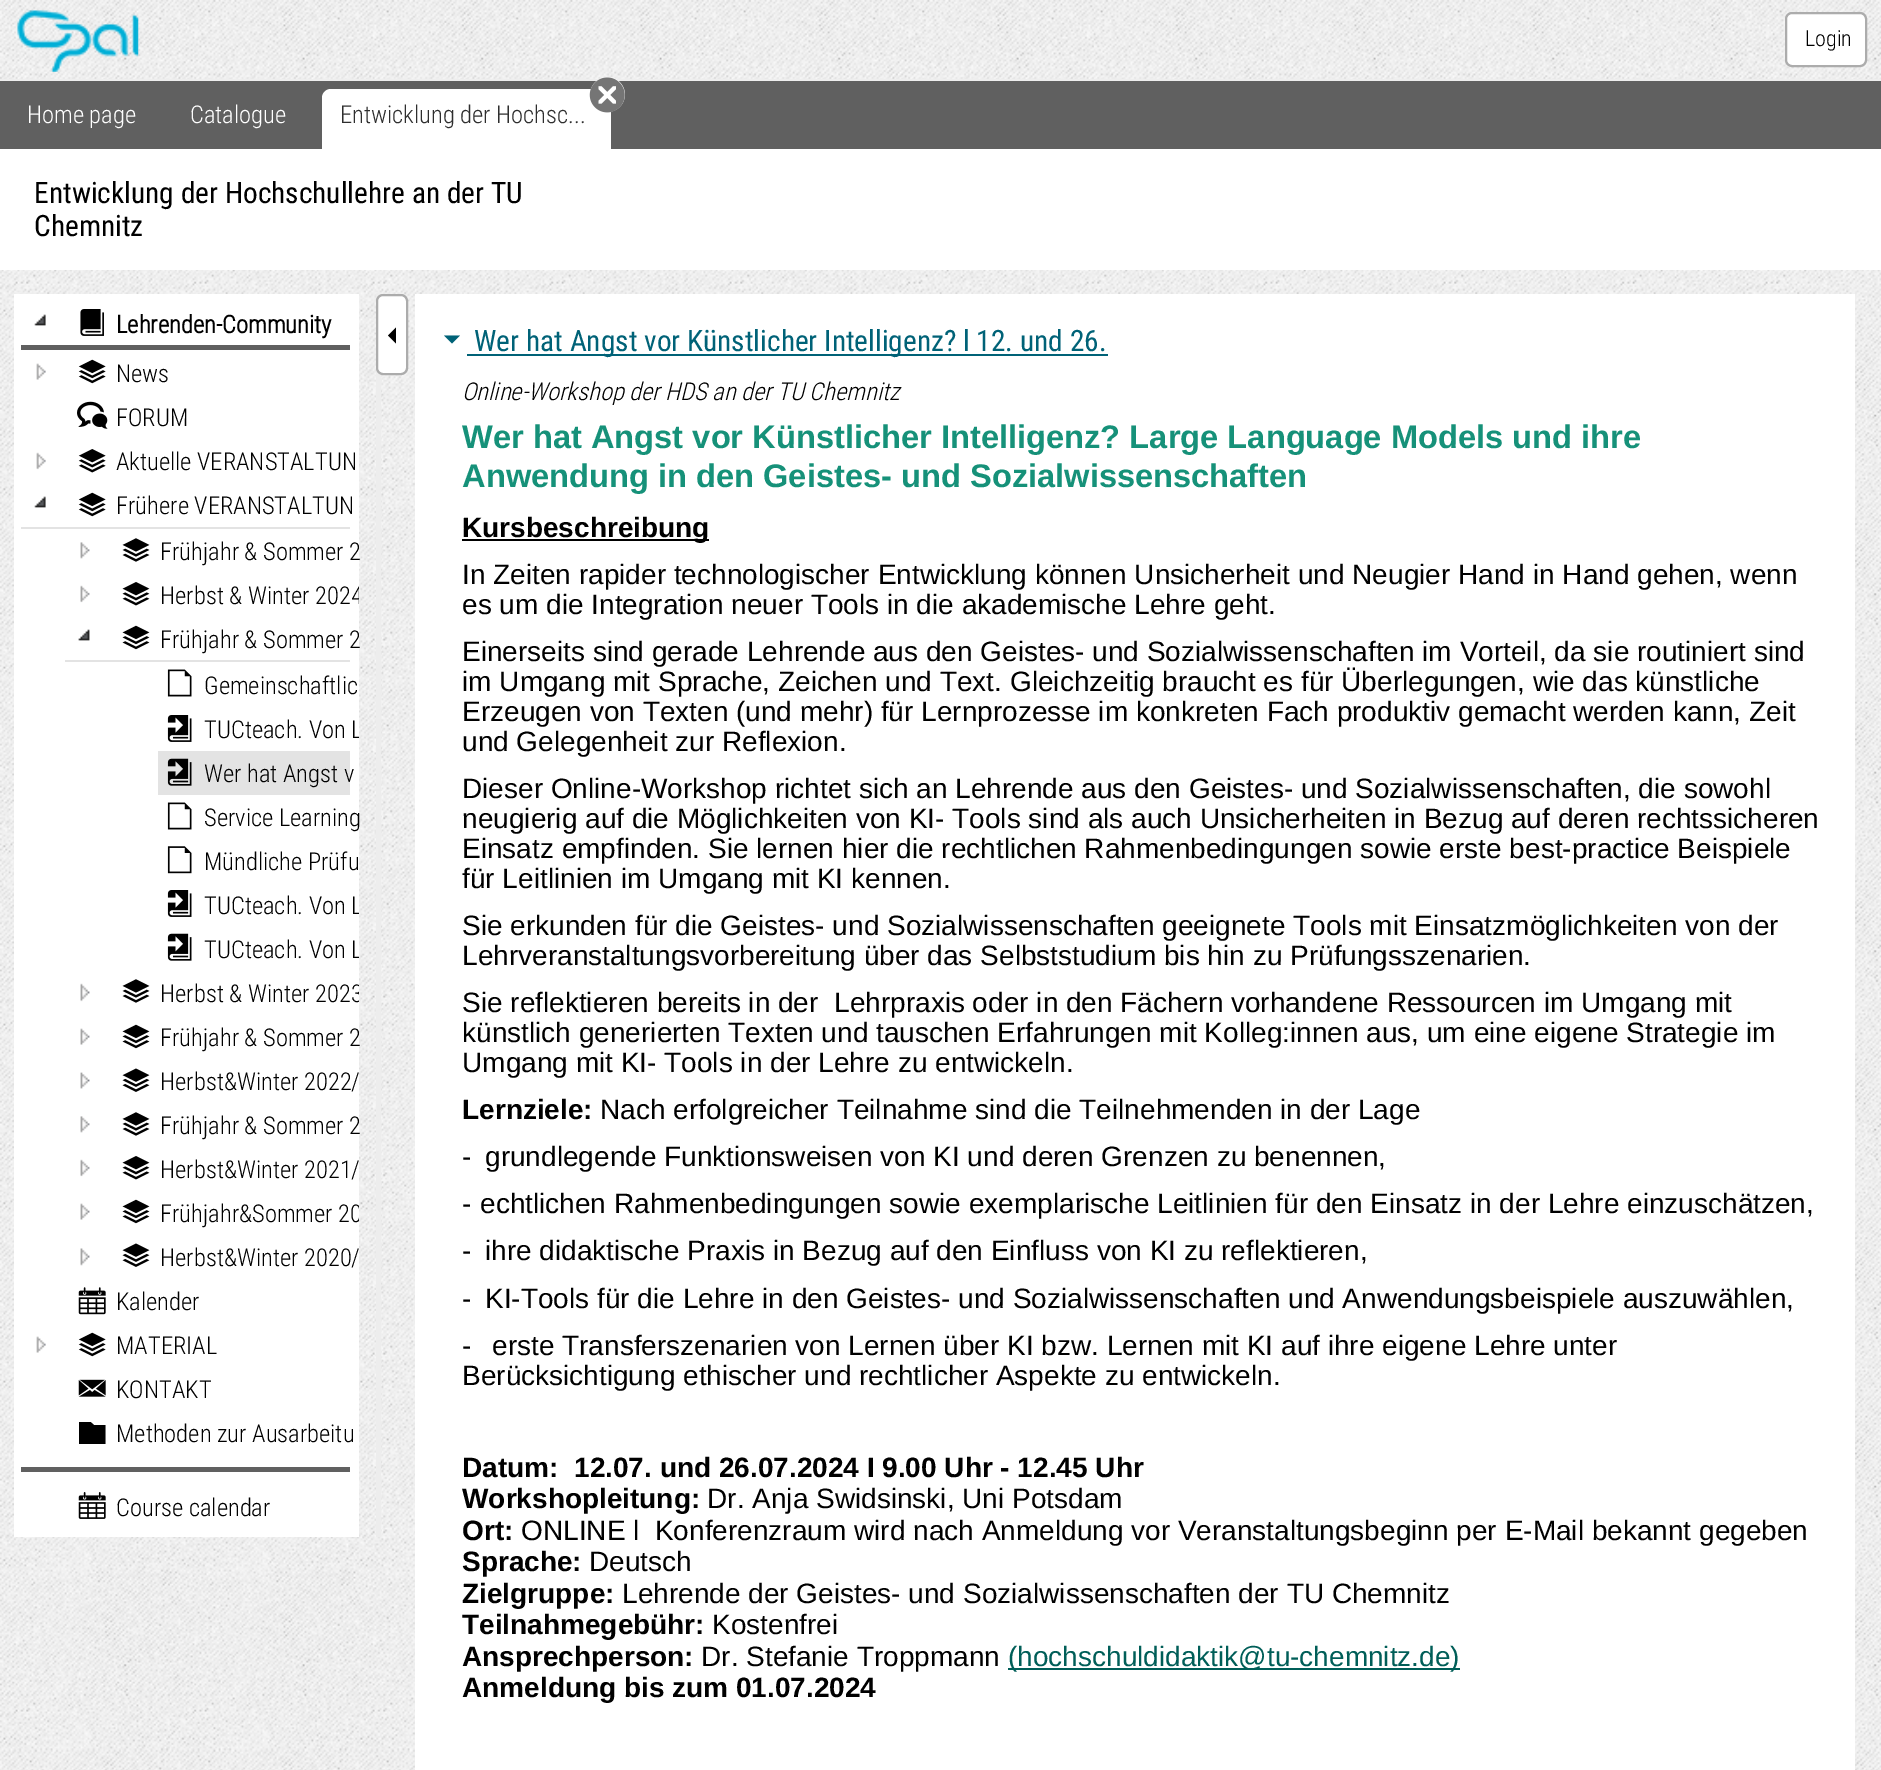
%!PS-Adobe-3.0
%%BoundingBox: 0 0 1881 1770
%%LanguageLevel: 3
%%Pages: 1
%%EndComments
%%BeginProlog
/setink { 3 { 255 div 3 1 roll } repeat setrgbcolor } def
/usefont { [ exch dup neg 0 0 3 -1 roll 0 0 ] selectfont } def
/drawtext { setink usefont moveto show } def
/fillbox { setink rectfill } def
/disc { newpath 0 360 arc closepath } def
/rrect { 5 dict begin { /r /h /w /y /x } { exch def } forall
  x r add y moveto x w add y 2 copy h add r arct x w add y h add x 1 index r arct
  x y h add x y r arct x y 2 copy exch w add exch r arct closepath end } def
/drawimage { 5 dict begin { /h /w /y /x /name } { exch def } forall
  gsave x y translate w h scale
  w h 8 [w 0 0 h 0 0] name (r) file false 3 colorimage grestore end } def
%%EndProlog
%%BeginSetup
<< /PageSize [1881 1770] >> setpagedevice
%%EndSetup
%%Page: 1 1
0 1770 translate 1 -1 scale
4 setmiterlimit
0 0 1881 1770 255 255 255 fillbox
(assets/img1.rgb) 0 0 1881 1770 drawimage
0 79 1881 2 238 238 238 fillbox
(assets/img2.rgb) 17 10 122 62 drawimage
255 255 255 setink
1786 13 80 53 6 rrect gsave fill grestore
172 172 172 setink
2 setlinewidth
stroke
(Login) 1805 46 /RobotoCondensed-Light 22 0 0 0 drawtext
0 81 1881 68 96 96 96 fillbox
(Home page) 27 123 /RobotoCondensed-Light 24.5 255 255 255 drawtext
(Catalogue) 190 123 /RobotoCondensed-Light 24.5 255 255 255 drawtext
331 89 moveto 611 89 lineto 611 149 lineto 322 149 lineto 322 98 lineto 322 93 326 89 331 89 curveto closepath fill
607.5 94.5 17.5 disc fill
(assets/img3.rgb) 589 77 36 36 drawimage
(Entwicklung der Hochsc...) 340 123 /RobotoCondensed-Light 24.5 46 46 46 drawtext
0 149 1881 121 255 255 255 fillbox
(Entwicklung der Hochschullehre an der TU) 34 203 /RobotoCondensed-Regular 29.4 0 0 0 drawtext
(Chemnitz) 34 236 /RobotoCondensed-Regular 29.4 0 0 0 drawtext
14 294 345 1243 255 255 255 fillbox
(assets/img4.rgb) 34 314 12 12 drawimage
(assets/img5.rgb) 80 309 24 27 drawimage
(Lehrenden-Community) 116 333 /RobotoCondensed-Bold 24.5 0 0 0 drawtext
21 345 329 5 96 96 96 fillbox
(assets/img6.rgb) 36 363 10 17 drawimage
(assets/img7.rgb) 78 359 28 25 drawimage
(News) 116 382 /RobotoCondensed-Light 24.5 0 0 0 drawtext
(assets/img8.rgb) 77 401 31 28 drawimage
(FORUM) 116 426 /RobotoCondensed-Light 24.5 0 0 0 drawtext
(assets/img9.rgb) 36 452 10 18 drawimage
(assets/img10.rgb) 78 449 28 24 drawimage
(Aktuelle VERANSTALTUN) 116 470 /RobotoCondensed-Light 24.5 0 0 0 drawtext
(assets/img4.rgb) 34 496 12 12 drawimage
(assets/img7.rgb) 78 492 28 25 drawimage
(Frühere VERANSTALTUN) 116 514 /RobotoCondensed-Light 24.5 0 0 0 drawtext
21 527 329 2 227 227 227 fillbox
(assets/img11.rgb) 80 542 10 17 drawimage
(assets/img12.rgb) 122 538 28 24 drawimage
(Frühjahr & Sommer 2) 160 560 /RobotoCondensed-Light 24.5 0 0 0 drawtext
(assets/img13.rgb) 80 585 10 18 drawimage
(assets/img14.rgb) 122 582 28 24 drawimage
gsave
14 294 345 1243 rectclip
(Herbst & Winter 2024) 160 604 /RobotoCondensed-Light 24.5 0 0 0 drawtext
grestore
(assets/img15.rgb) 78 629 12 12 drawimage
(assets/img16.rgb) 122 625 28 25 drawimage
(Frühjahr & Sommer 2) 160 648 /RobotoCondensed-Light 24.5 0 0 0 drawtext
65 660 285 2 227 227 227 fillbox
(assets/img17.rgb) 167 669 25 28 drawimage
(Gemeinschaftlic) 204 694 /RobotoCondensed-Light 24.5 0 0 0 drawtext
(assets/img18.rgb) 167 715 25 27 drawimage
gsave
14 294 345 1243 rectclip
(TUCteach. Von L) 204 738 /RobotoCondensed-Light 24.5 0 0 0 drawtext
grestore
158 751 192 44 227 227 227 fillbox
(assets/img19.rgb) 167 758 25 28 drawimage
(Wer hat Angst v) 204 782 /RobotoCondensed-Light 24.5 0 0 0 drawtext
(assets/img17.rgb) 167 802 25 28 drawimage
(Service Learning) 204 826 /RobotoCondensed-Light 24.5 0 0 0 drawtext
(assets/img20.rgb) 167 846 25 28 drawimage
(Mündliche Prüfu) 204 870 /RobotoCondensed-Light 24.5 0 0 0 drawtext
(assets/img18.rgb) 167 890 25 27 drawimage
gsave
14 294 345 1243 rectclip
(TUCteach. Von L) 204 914 /RobotoCondensed-Light 24.5 0 0 0 drawtext
grestore
(assets/img21.rgb) 167 933 25 28 drawimage
gsave
14 294 345 1243 rectclip
(TUCteach. Von L) 204 958 /RobotoCondensed-Light 24.5 0 0 0 drawtext
grestore
(assets/img22.rgb) 80 983 10 19 drawimage
(assets/img12.rgb) 122 979 28 24 drawimage
gsave
14 294 345 1243 rectclip
(Herbst & Winter 2023) 160 1002 /RobotoCondensed-Light 24.5 0 0 0 drawtext
grestore
(assets/img23.rgb) 80 1028 10 17 drawimage
(assets/img16.rgb) 122 1024 28 25 drawimage
(Frühjahr & Sommer 2) 160 1046 /RobotoCondensed-Light 24.5 0 0 0 drawtext
(assets/img24.rgb) 80 1072 10 17 drawimage
(assets/img25.rgb) 122 1068 28 24 drawimage
(Herbst&Winter 2022/) 160 1090 /RobotoCondensed-Light 24.5 0 0 0 drawtext
(assets/img11.rgb) 80 1116 10 17 drawimage
(assets/img12.rgb) 122 1112 28 24 drawimage
(Frühjahr & Sommer 2) 160 1134 /RobotoCondensed-Light 24.5 0 0 0 drawtext
(assets/img13.rgb) 80 1159 10 18 drawimage
(assets/img14.rgb) 122 1156 28 24 drawimage
(Herbst&Winter 2021/) 160 1178 /RobotoCondensed-Light 24.5 0 0 0 drawtext
(assets/img23.rgb) 80 1203 10 17 drawimage
(assets/img16.rgb) 122 1199 28 25 drawimage
gsave
14 294 345 1243 rectclip
(Frühjahr&Sommer 20) 160 1222 /RobotoCondensed-Light 24.5 0 0 0 drawtext
grestore
(assets/img26.rgb) 80 1248 10 18 drawimage
(assets/img25.rgb) 122 1243 28 24 drawimage
(Herbst&Winter 2020/) 160 1266 /RobotoCondensed-Light 24.5 0 0 0 drawtext
(assets/img27.rgb) 78 1287 28 28 drawimage
(Kalender) 116 1310 /RobotoCondensed-Light 24.5 0 0 0 drawtext
(assets/img6.rgb) 36 1336 10 17 drawimage
(assets/img7.rgb) 78 1332 28 25 drawimage
(MATERIAL) 116 1354 /RobotoCondensed-Light 24.5 0 0 0 drawtext
(assets/img28.rgb) 78 1379 28 18 drawimage
(KONTAKT) 116 1398 /RobotoCondensed-Light 24.5 0 0 0 drawtext
90.5 1422 moveto 94 1425 lineto 105.5 1425 lineto 105.5 1444 lineto 79 1444 lineto 79 1422 lineto closepath fill
(Methoden zur Ausarbeitu) 116 1442 /RobotoCondensed-Light 24.5 0 0 0 drawtext
21 1467 329 5 96 96 96 fillbox
(assets/img29.rgb) 78 1492 28 27 drawimage
(Course calendar) 116 1516 /RobotoCondensed-Light 24.5 0 0 0 drawtext
376 294 5 1243 237 237 237 fillbox
255 255 255 setink
377 295 30 79 6 rrect gsave fill grestore
172 172 172 setink
stroke
0 0 0 setink
396 327.5 moveto 388 335.5 lineto 396 343.5 lineto closepath fill
415 294 1440 1476 255 255 255 fillbox
0 98 119 setink
444 335.5 moveto 452 343.5 lineto 460 335.5 lineto closepath fill
467 354 641 2 0 98 119 fillbox
(Wer hat Angst vor Künstlicher Intelligenz? l 12. und 26.) 474 351 /RobotoCondensed-Regular 29.4 0 98 119 drawtext
(Online-Workshop der HDS an der TU Chemnitz) 462 400 /RobotoCondensed-LightItalic 24.5 0 0 0 drawtext
(Wer hat Angst vor Künstlicher Intelligenz? Large Language Models und ihre) 462 448 /LiberationSans-Bold 32.65 22 145 121 drawtext
(Anwendung in den Geistes- und Sozialwissenschaften) 462 487 /LiberationSans-Bold 32.65 22 145 121 drawtext
462 539 247 2 0 0 0 fillbox
(Kursbeschreibung) 462 537 /LiberationSans-Bold 28 0 0 0 drawtext
(In Zeiten rapider technologischer Entwicklung können Unsicherheit und Neugier Hand in Hand gehen, wenn) 462 584 /LiberationSans-Regular 28 0 0 0 drawtext
(es um die Integration neuer Tools in die akademische Lehre geht.) 462 614 /LiberationSans-Regular 28 0 0 0 drawtext
(Einerseits sind gerade Lehrende aus den Geistes- und Sozialwissenschaften im Vorteil, da sie routiniert sind) 462 661 /LiberationSans-Regular 28 0 0 0 drawtext
(im Umgang mit Sprache, Zeichen und Text. Gleichzeitig braucht es für Überlegungen, wie das künstliche) 462 691 /LiberationSans-Regular 28 0 0 0 drawtext
(Erzeugen von Texten \(und mehr\) für Lernprozesse im konkreten Fach produktiv gemacht werden kann, Zeit) 462 721 /LiberationSans-Regular 28 0 0 0 drawtext
(und Gelegenheit zur Reflexion.) 462 751 /LiberationSans-Regular 28 0 0 0 drawtext
(Dieser Online-Workshop richtet sich an Lehrende aus den Geistes- und Sozialwissenschaften, die sowohl) 462 798 /LiberationSans-Regular 28 0 0 0 drawtext
(neugierig auf die Möglichkeiten von KI- Tools sind als auch Unsicherheiten in Bezug auf deren rechtssicheren) 462 828 /LiberationSans-Regular 28 0 0 0 drawtext
(Einsatz empfinden. Sie lernen hier die rechtlichen Rahmenbedingungen sowie erste best-practice Beispiele) 462 858 /LiberationSans-Regular 28 0 0 0 drawtext
(für Leitlinien im Umgang mit KI kennen.) 462 888 /LiberationSans-Regular 28 0 0 0 drawtext
(Sie erkunden für die Geistes- und Sozialwissenschaften geeignete Tools mit Einsatzmöglichkeiten von der) 462 935 /LiberationSans-Regular 28 0 0 0 drawtext
(Lehrveranstaltungsvorbereitung über das Selbststudium bis hin zu Prüfungsszenarien.) 462 965 /LiberationSans-Regular 28 0 0 0 drawtext
(Sie reflektieren bereits in der) 462 1012 /LiberationSans-Regular 28 0 0 0 drawtext
(Lehrpraxis oder in den Fächern vorhandene Ressourcen im Umgang mit) 834 1012 /LiberationSans-Regular 28 0 0 0 drawtext
(künstlich generierten Texten und tauschen Erfahrungen mit Kolleg:innen aus, um eine eigene Strategie im) 462 1042 /LiberationSans-Regular 28 0 0 0 drawtext
(Umgang mit KI- Tools in der Lehre zu entwickeln.) 462 1072 /LiberationSans-Regular 28 0 0 0 drawtext
(Lernziele:) 462 1119 /LiberationSans-Bold 28 0 0 0 drawtext
(Nach erfolgreicher Teilnahme sind die Teilnehmenden in der Lage) 600 1119 /LiberationSans-Regular 28 0 0 0 drawtext
(-) 462 1166 /LiberationSans-Regular 28 0 0 0 drawtext
(grundlegende Funktionsweisen von KI und deren Grenzen zu benennen,) 485 1166 /LiberationSans-Regular 28 0 0 0 drawtext
(-) 462 1213 /LiberationSans-Regular 28 0 0 0 drawtext
(echtlichen Rahmenbedingungen sowie exemplarische Leitlinien für den Einsatz in der Lehre einzuschätzen,) 480 1213 /LiberationSans-Regular 28 0 0 0 drawtext
(-) 462 1260 /LiberationSans-Regular 28 0 0 0 drawtext
(ihre didaktische Praxis in Bezug auf den Einfluss von KI zu reflektieren,) 485 1260 /LiberationSans-Regular 28 0 0 0 drawtext
(-) 462 1308 /LiberationSans-Regular 28 0 0 0 drawtext
(KI-Tools für die Lehre in den Geistes- und Sozialwissenschaften und Anwendungsbeispiele auszuwählen,) 485 1308 /LiberationSans-Regular 28 0 0 0 drawtext
(-) 462 1355 /LiberationSans-Regular 28 0 0 0 drawtext
(erste Transferszenarien von Lernen über KI bzw. Lernen mit KI auf ihre eigene Lehre unter) 492 1355 /LiberationSans-Regular 28 0 0 0 drawtext
(Berücksichtigung ethischer und rechtlicher Aspekte zu entwickeln.) 462 1385 /LiberationSans-Regular 28 0 0 0 drawtext
(Datum:  12.07. und 26.07.2024 I 9.00 Uhr - 12.45 Uhr) 462 1477 /LiberationSans-Bold 28 0 0 0 drawtext
(Workshopleitung:) 462 1508 /LiberationSans-Bold 28 0 0 0 drawtext
(Dr. Anja Swidsinski, Uni Potsdam) 707 1508 /LiberationSans-Regular 28 0 0 0 drawtext
(Ort:) 462 1540 /LiberationSans-Bold 28 0 0 0 drawtext
(ONLINE l  Konferenzraum wird nach Anmeldung vor Veranstaltungsbeginn per E-Mail bekannt gegeben) 521 1540 /LiberationSans-Regular 28 0 0 0 drawtext
(Sprache:) 462 1571 /LiberationSans-Bold 28 0 0 0 drawtext
(Deutsch) 589 1571 /LiberationSans-Regular 28 0 0 0 drawtext
(Zielgruppe:) 462 1603 /LiberationSans-Bold 28 0 0 0 drawtext
(Lehrende der Geistes- und Sozialwissenschaften der TU Chemnitz) 622 1603 /LiberationSans-Regular 28 0 0 0 drawtext
(Teilnahmegebühr:) 462 1634 /LiberationSans-Bold 28 0 0 0 drawtext
(Kostenfrei) 712 1634 /LiberationSans-Regular 28 0 0 0 drawtext
(Ansprechperson:) 462 1666 /LiberationSans-Bold 28 0 0 0 drawtext
(Dr. Stefanie Troppmann) 701 1666 /LiberationSans-Regular 28 0 0 0 drawtext
1008 1668 452 2 0 94 88 fillbox
(\(hochschuldidaktik@tu-chemnitz.de\)) 1008 1666 /LiberationSans-Regular 28 0 94 88 drawtext
(Anmeldung bis zum 01.07.2024) 462 1697 /LiberationSans-Bold 28 0 0 0 drawtext
showpage
%%EOF
